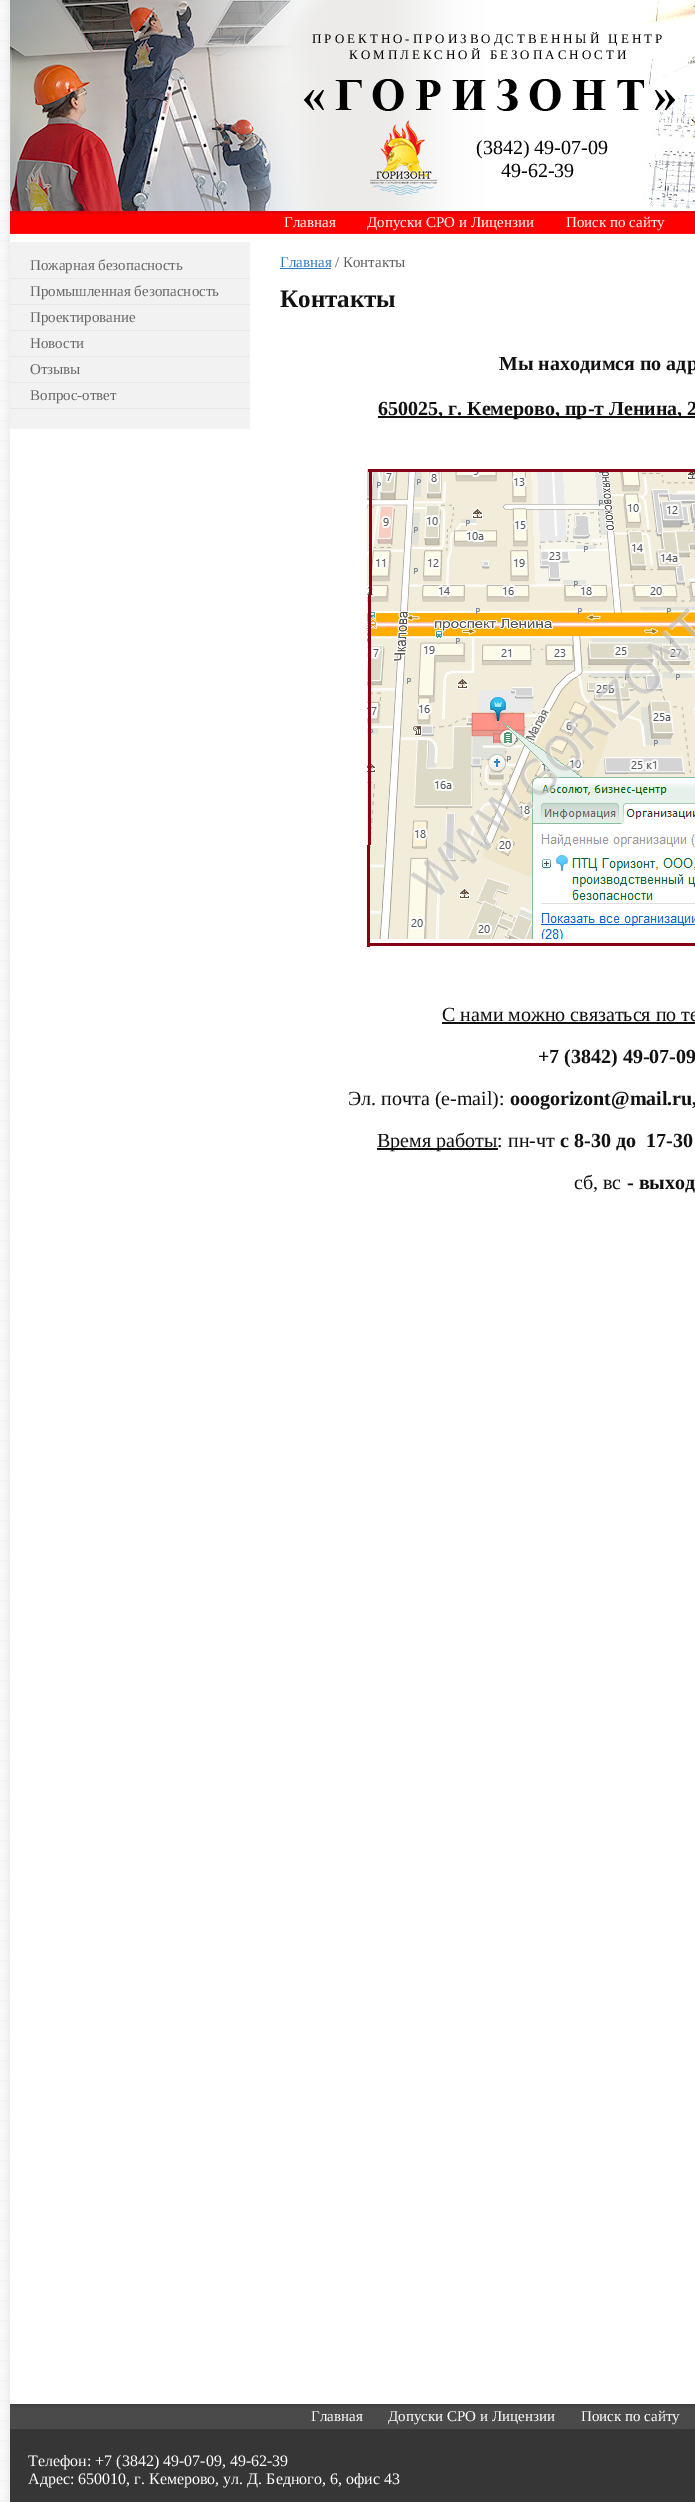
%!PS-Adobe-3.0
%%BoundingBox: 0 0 695 2502
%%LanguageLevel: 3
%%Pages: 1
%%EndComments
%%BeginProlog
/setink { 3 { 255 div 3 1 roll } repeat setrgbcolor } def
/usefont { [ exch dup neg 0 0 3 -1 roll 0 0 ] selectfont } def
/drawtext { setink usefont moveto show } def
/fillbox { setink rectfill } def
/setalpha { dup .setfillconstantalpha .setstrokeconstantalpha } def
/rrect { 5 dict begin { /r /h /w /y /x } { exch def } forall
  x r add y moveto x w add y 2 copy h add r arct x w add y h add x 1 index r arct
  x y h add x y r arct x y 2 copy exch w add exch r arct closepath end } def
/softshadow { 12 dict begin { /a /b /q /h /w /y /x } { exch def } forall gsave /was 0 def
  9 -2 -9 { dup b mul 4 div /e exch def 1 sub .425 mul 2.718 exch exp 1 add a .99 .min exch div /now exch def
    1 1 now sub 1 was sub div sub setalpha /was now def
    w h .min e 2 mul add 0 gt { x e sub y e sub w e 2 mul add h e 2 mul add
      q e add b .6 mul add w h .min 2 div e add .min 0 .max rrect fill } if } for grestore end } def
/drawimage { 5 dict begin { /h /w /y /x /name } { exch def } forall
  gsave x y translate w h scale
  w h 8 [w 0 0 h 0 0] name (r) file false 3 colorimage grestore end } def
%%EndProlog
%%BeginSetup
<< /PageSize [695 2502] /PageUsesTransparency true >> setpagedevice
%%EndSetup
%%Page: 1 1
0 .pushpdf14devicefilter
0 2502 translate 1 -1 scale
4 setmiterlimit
0 0 695 2502 255 255 255 fillbox
(assets/img1.rgb) 0 0 10 2502 drawimage
226 226 226 setink
9 -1 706 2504 0 6.5 1 softshadow
10 234 685 2170 255 255 255 fillbox
(assets/img2.rgb) 10 0 685 211 drawimage
/LiberationSerif-Regular 13 usefont
0 0 0 setink
312 43 moveto 3 0 (ПРОЕКТНО-ПРОИЗВОДСТВЕННЫЙ ЦЕНТР) ashow
349 59 moveto 3 0 (КОМПЛЕКСНОЙ БЕЗОПАСНОСТИ) ashow
(assets/img3.rgb) 303 79 372 32 drawimage
(assets/img4.rgb) 370 120 67 75 drawimage
(\(3842\) 49-07-09) 476 154 /LiberationSerif-Regular 20 0 0 0 drawtext
(49-62-39) 501 177 /LiberationSerif-Regular 20 0 0 0 drawtext
(assets/img5.rgb) 10 211 685 23 drawimage
(Главная) 284 227 /LiberationSerif-Regular 15 255 255 255 drawtext
(Допуски СРО и Лицензии) 367 227 /LiberationSerif-Regular 15 255 255 255 drawtext
(Поиск по сайту) 566 227 /LiberationSerif-Regular 15 255 255 255 drawtext
10 242 240 187 242 242 242 fillbox
10 278 240 1 230 230 230 fillbox
(Пожарная безопасность) 30 270 /LiberationSerif-Regular 15 105 105 105 drawtext
10 304 240 1 230 230 230 fillbox
(Промышленная безопасность) 30 296 /LiberationSerif-Regular 15 105 105 105 drawtext
10 330 240 1 230 230 230 fillbox
(Проектирование) 30 322 /LiberationSerif-Regular 15 105 105 105 drawtext
10 356 240 1 230 230 230 fillbox
(Новости) 30 348 /LiberationSerif-Regular 15 105 105 105 drawtext
10 382 240 1 230 230 230 fillbox
(Отзывы) 30 374 /LiberationSerif-Regular 15 105 105 105 drawtext
10 408 240 1 230 230 230 fillbox
(Вопрос-ответ) 30 400 /LiberationSerif-Regular 15 105 105 105 drawtext
(Главная) 280 267 /LiberationSerif-Regular 15 49 122 196 drawtext
280 268 51 1 49 122 196 fillbox
(/ Контакты) 335 267 /LiberationSerif-Regular 15 96 96 96 drawtext
(Контакты) 280 307 /LiberationSerif-Bold 25 17 17 17 drawtext
(Мы находимся по адр) 499 370 /LiberationSerif-Bold 20 17 17 17 drawtext
378 416 317 2 17 17 17 fillbox
(650025, г. Кемерово, пр-т Ленина, 2) 378 415 /LiberationSerif-Bold 20 17 17 17 drawtext
(assets/img6.rgb) 367 469 328 478 drawimage
(С нами можно связаться по те) 442 1021 /LiberationSerif-Regular 20 17 17 17 drawtext
442 1022 253 2 17 17 17 fillbox
(+7 \(3842\) 49-07-09) 538 1063 /LiberationSerif-Bold 20 17 17 17 drawtext
(Эл. почта \(e-mail\):) 348 1105 /LiberationSerif-Regular 20 17 17 17 drawtext
(ooogorizont@mail.ru,) 510 1105 /LiberationSerif-Bold 20 17 17 17 drawtext
377 1148 121 2 17 17 17 fillbox
(Время работы: пн-чт) 377 1147 /LiberationSerif-Regular 20 17 17 17 drawtext
(с 8-30 до) 560 1147 /LiberationSerif-Bold 20 17 17 17 drawtext
(17-30) 646 1147 /LiberationSerif-Bold 20 17 17 17 drawtext
(сб, вс) 574 1189 /LiberationSerif-Regular 20 17 17 17 drawtext
(- выход) 627 1189 /LiberationSerif-Bold 20 17 17 17 drawtext
(assets/img7.rgb) 10 2404 685 98 drawimage
(Главная) 311 2421 /LiberationSerif-Regular 15 255 255 255 drawtext
(Допуски СРО и Лицензии) 388 2421 /LiberationSerif-Regular 15 255 255 255 drawtext
(Поиск по сайту) 581 2421 /LiberationSerif-Regular 15 255 255 255 drawtext
(Телефон: +7 \(3842\) 49-07-09, 49-62-39) 28 2466 /LiberationSerif-Regular 16 255 255 255 drawtext
(Адрес: 650010, г. Кемерово, ул. Д. Бедного, 6, офис 43) 28 2484 /LiberationSerif-Regular 16 255 255 255 drawtext
.poppdf14devicefilter showpage
%%EOF
